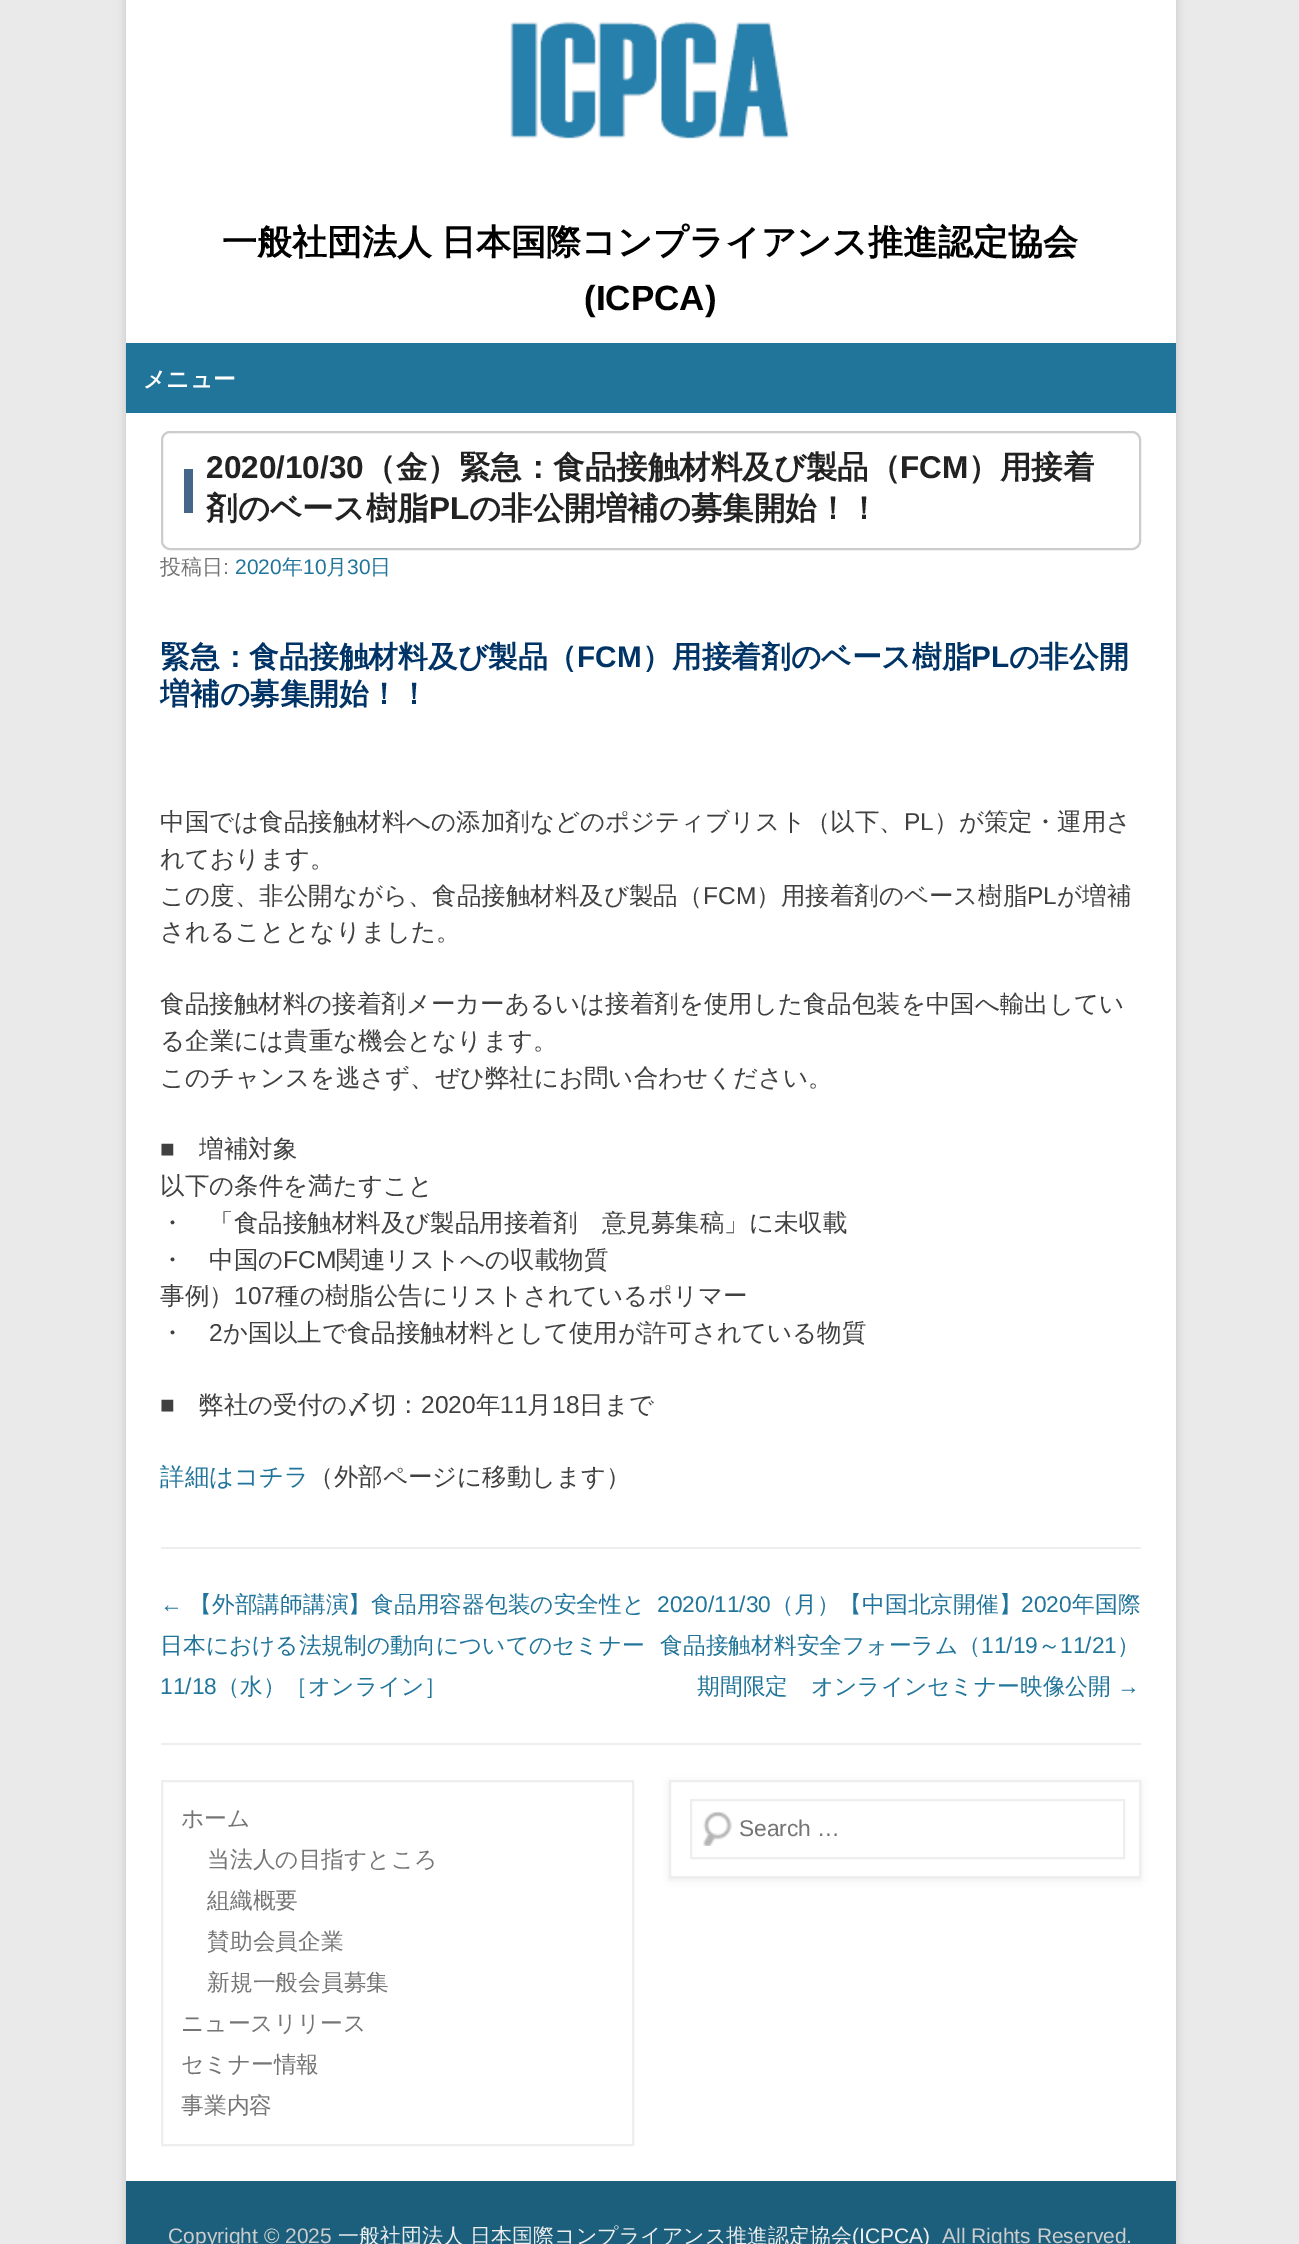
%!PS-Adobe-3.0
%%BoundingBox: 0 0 1299 2244
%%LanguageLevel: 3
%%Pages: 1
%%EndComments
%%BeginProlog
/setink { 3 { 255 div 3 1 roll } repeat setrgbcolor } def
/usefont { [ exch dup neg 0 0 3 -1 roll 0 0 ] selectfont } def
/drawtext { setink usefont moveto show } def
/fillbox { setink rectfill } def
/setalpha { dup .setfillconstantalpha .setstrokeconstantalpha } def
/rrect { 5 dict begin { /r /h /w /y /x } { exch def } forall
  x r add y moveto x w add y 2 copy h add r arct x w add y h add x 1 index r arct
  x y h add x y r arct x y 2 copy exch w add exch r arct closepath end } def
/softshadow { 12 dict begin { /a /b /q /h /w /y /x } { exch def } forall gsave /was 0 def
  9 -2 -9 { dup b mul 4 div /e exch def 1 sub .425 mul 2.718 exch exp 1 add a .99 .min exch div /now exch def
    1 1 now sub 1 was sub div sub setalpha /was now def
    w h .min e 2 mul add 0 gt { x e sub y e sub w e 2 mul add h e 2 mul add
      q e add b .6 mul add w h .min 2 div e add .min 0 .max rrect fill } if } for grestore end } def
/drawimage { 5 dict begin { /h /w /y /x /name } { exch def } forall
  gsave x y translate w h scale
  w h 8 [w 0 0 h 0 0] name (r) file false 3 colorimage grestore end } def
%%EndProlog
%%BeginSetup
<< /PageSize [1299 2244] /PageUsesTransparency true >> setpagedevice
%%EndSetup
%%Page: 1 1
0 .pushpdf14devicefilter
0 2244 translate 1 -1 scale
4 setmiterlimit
0 0 1299 2244 234 234 234 fillbox
100 100 100 setink
126 -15 1050 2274 0 5 0.3 softshadow
126 0 1050 2181 255 255 255 fillbox
(assets/img1.rgb) 510 21 280 118 drawimage
/WenQuanYiZenHei-Bold 35 usefont
0 0 0 setink
222 254 moveto -1 0 32 (一般社団法人 日本国際コンプライアンス推進認定協会) widthshow
(\(ICPCA\)) 584 310 /LiberationSans-Bold 35 0 0 0 drawtext
126 343 1050 70 33 117 155 fillbox
(メニュー) 143 387 /WenQuanYiZenHei-Bold 22.75 255 255 255 drawtext
161 1743 980 2 238 238 238 fillbox
161 1547 980 2 238 238 238 fillbox
204 204 204 setink
2 setlinewidth
162 432 978 117 8 rrect stroke
184 469 9 44 68 102 137 fillbox
(2020/10/30) 206 478 /LiberationSans-Bold 31.5 34 34 34 drawtext
(（金）緊急：食品接触材料及び製品（) 364 478 /WenQuanYiZenHei-Bold 31.5 34 34 34 drawtext
(FCM) 900 478 /LiberationSans-Bold 31.5 34 34 34 drawtext
(）用接着) 968 478 /WenQuanYiZenHei-Bold 31.5 34 34 34 drawtext
(剤のベース樹脂) 206 519 /WenQuanYiZenHei-Bold 31.5 34 34 34 drawtext
(PL) 429 519 /LiberationSans-Bold 31.5 34 34 34 drawtext
(の非公開増補の募集開始！！) 469 519 /WenQuanYiZenHei-Bold 31.5 34 34 34 drawtext
(投稿日) 160 574 /WenQuanYiZenHei-Medium 21 117 117 117 drawtext
(:) 223 574 /LiberationSans-Regular 21 117 117 117 drawtext
(2020) 235 574 /LiberationSans-Regular 21 33 117 155 drawtext
(年) 282 574 /WenQuanYiZenHei-Medium 21 33 117 155 drawtext
(10) 303 574 /LiberationSans-Regular 21 33 117 155 drawtext
(月) 326 574 /WenQuanYiZenHei-Medium 21 33 117 155 drawtext
(30) 347 574 /LiberationSans-Regular 21 33 117 155 drawtext
(日) 370 574 /WenQuanYiZenHei-Medium 21 33 117 155 drawtext
(緊急：食品接触材料及び製品（) 160 667 /WenQuanYiZenHei-Bold 29.75 0 51 102 drawtext
(FCM) 577 667 /LiberationSans-Bold 29.75 0 51 102 drawtext
(）用接着剤のベース樹脂) 642 667 /WenQuanYiZenHei-Bold 29.75 0 51 102 drawtext
(PL) 971 667 /LiberationSans-Bold 29.75 0 51 102 drawtext
(の非公開) 1009 667 /WenQuanYiZenHei-Bold 29.75 0 51 102 drawtext
(増補の募集開始！！) 160 704 /WenQuanYiZenHei-Bold 29.75 0 51 102 drawtext
(中国では食品接触材料への添加剤などのポジティブリスト（以下、) 160 830 /WenQuanYiZenHei-Medium 24.5 64 64 64 drawtext
(PL) 904 830 /LiberationSans-Regular 24.5 64 64 64 drawtext
(）が策定・運用さ) 934 830 /WenQuanYiZenHei-Medium 24.5 64 64 64 drawtext
(れております。) 160 867 /WenQuanYiZenHei-Medium 24.5 64 64 64 drawtext
(この度、非公開ながら、食品接触材料及び製品（) 160 904 /WenQuanYiZenHei-Medium 24.5 64 64 64 drawtext
(FCM) 703 904 /LiberationSans-Regular 24.5 64 64 64 drawtext
(）用接着剤のベース樹脂) 756 904 /WenQuanYiZenHei-Medium 24.5 64 64 64 drawtext
(PL) 1027 904 /LiberationSans-Regular 24.5 64 64 64 drawtext
(が増補) 1057 904 /WenQuanYiZenHei-Medium 24.5 64 64 64 drawtext
(されることとなりました。) 160 940 /WenQuanYiZenHei-Medium 24.5 64 64 64 drawtext
(食品接触材料の接着剤メーカーあるいは接着剤を使用した食品包装を中国へ輸出してい) 160 1012 /WenQuanYiZenHei-Medium 24.5 64 64 64 drawtext
(る企業には貴重な機会となります。) 160 1049 /WenQuanYiZenHei-Medium 24.5 64 64 64 drawtext
(このチャンスを逃さず、ぜひ弊社にお問い合わせください。) 160 1086 /WenQuanYiZenHei-Medium 24.5 64 64 64 drawtext
(■) 160 1157 /LiberationSans-Regular 24.5 64 64 64 drawtext
(増補対象) 199 1157 /WenQuanYiZenHei-Medium 24.5 64 64 64 drawtext
(以下の条件を満たすこと) 160 1194 /WenQuanYiZenHei-Medium 24.5 64 64 64 drawtext
(・　「食品接触材料及び製品用接着剤　意見募集稿」に未収載) 160 1231 /WenQuanYiZenHei-Medium 24.5 64 64 64 drawtext
(・　中国の) 160 1268 /WenQuanYiZenHei-Medium 24.5 64 64 64 drawtext
(FCM) 283 1268 /LiberationSans-Regular 24.5 64 64 64 drawtext
(関連リストへの収載物質) 336 1268 /WenQuanYiZenHei-Medium 24.5 64 64 64 drawtext
(事例）) 160 1304 /WenQuanYiZenHei-Medium 24.5 64 64 64 drawtext
(107) 234 1304 /LiberationSans-Regular 24.5 64 64 64 drawtext
(種の樹脂公告にリストされているポリマー) 275 1304 /WenQuanYiZenHei-Medium 24.5 64 64 64 drawtext
(・) 160 1341 /WenQuanYiZenHei-Medium 24.5 64 64 64 drawtext
(2) 209 1341 /LiberationSans-Regular 24.5 64 64 64 drawtext
(か国以上で食品接触材料として使用が許可されている物質) 223 1341 /WenQuanYiZenHei-Medium 24.5 64 64 64 drawtext
(■) 160 1413 /LiberationSans-Regular 24.5 64 64 64 drawtext
(弊社の受付の〆切：) 199 1413 /WenQuanYiZenHei-Medium 24.5 64 64 64 drawtext
(2020) 421 1413 /LiberationSans-Regular 24.5 64 64 64 drawtext
(年) 476 1413 /WenQuanYiZenHei-Medium 24.5 64 64 64 drawtext
(11) 500 1413 /LiberationSans-Regular 24.5 64 64 64 drawtext
(月) 527 1413 /WenQuanYiZenHei-Medium 24.5 64 64 64 drawtext
(18) 552 1413 /LiberationSans-Regular 24.5 64 64 64 drawtext
(日まで) 579 1413 /WenQuanYiZenHei-Medium 24.5 64 64 64 drawtext
(詳細はコチラ) 160 1485 /WenQuanYiZenHei-Medium 24.5 33 117 155 drawtext
(（外部ページに移動します）) 309 1485 /WenQuanYiZenHei-Medium 24.5 64 64 64 drawtext
(←) 160 1612 /LiberationSans-Regular 22.75 33 117 155 drawtext
(【外部講師講演】食品用容器包装の安全性と) 189 1612 /WenQuanYiZenHei-Medium 22.75 33 117 155 drawtext
(日本における法規制の動向についてのセミナー) 160 1653 /WenQuanYiZenHei-Medium 22.75 33 117 155 drawtext
(11/18) 160 1694 /LiberationSans-Regular 22.75 33 117 155 drawtext
(（水）［オンライン］) 217 1694 /WenQuanYiZenHei-Medium 22.75 33 117 155 drawtext
(2020/11/30) 657 1612 /LiberationSans-Regular 22.75 33 117 155 drawtext
(（月）【中国北京開催】) 771 1612 /WenQuanYiZenHei-Medium 22.75 33 117 155 drawtext
(2020) 1021 1612 /LiberationSans-Regular 22.75 33 117 155 drawtext
(年国際) 1072 1612 /WenQuanYiZenHei-Medium 22.75 33 117 155 drawtext
(食品接触材料安全フォーラム（) 660 1653 /WenQuanYiZenHei-Medium 22.75 33 117 155 drawtext
(11/19) 981 1653 /LiberationSans-Regular 22.75 33 117 155 drawtext
(～) 1038 1653 /WenQuanYiZenHei-Medium 22.75 33 117 155 drawtext
(11/21) 1060 1653 /LiberationSans-Regular 22.75 33 117 155 drawtext
(）) 1117 1653 /WenQuanYiZenHei-Medium 22.75 33 117 155 drawtext
(期間限定　オンラインセミナー映像公開) 697 1694 /WenQuanYiZenHei-Medium 22.75 33 117 155 drawtext
(→) 1117 1694 /LiberationSans-Regular 22.75 33 117 155 drawtext
238 238 238 setink
162 1781 471 364 rectstroke
(ホーム) 181 1826 /WenQuanYiZenHei-Medium 22.75 117 117 117 drawtext
(当法人の目指すところ) 207 1867 /WenQuanYiZenHei-Medium 22.75 117 117 117 drawtext
(組織概要) 207 1908 /WenQuanYiZenHei-Medium 22.75 117 117 117 drawtext
(賛助会員企業) 207 1949 /WenQuanYiZenHei-Medium 22.75 117 117 117 drawtext
(新規一般会員募集) 207 1990 /WenQuanYiZenHei-Medium 22.75 117 117 117 drawtext
(ニュースリリース) 181 2031 /WenQuanYiZenHei-Medium 22.75 117 117 117 drawtext
(セミナー情報) 181 2072 /WenQuanYiZenHei-Medium 22.75 117 117 117 drawtext
(事業内容) 181 2113 /WenQuanYiZenHei-Medium 22.75 117 117 117 drawtext
gsave
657 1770 moveto 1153 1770 lineto 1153 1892 lineto 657 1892 lineto closepath 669 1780 moveto 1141 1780 lineto 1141 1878 lineto 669 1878 lineto closepath eoclip newpath
0 0 0 setink
669 1782 472 98 0 3.5 0.07 softshadow
grestore
238 238 238 setink
670 1781 470 96 rectstroke
(assets/img2.rgb) 703 1811 29 35 drawimage
691 1800 433 58 rectstroke
(Search …) 739 1836 /LiberationSans-Regular 22.75 117 117 117 drawtext
126 2181 1050 63 27 95 125 fillbox
(Copyright © 2025) 168 2243 /LiberationSans-Regular 21 204 204 204 drawtext
(一般社団法人 日本国際コンプライアンス推進認定協会) 338 2243 /WenQuanYiZenHei-Medium 21 238 238 238 drawtext
(\(ICPCA\)) 852 2243 /LiberationSans-Regular 21 238 238 238 drawtext
(All Rights Reserved.) 942 2243 /LiberationSans-Regular 21 204 204 204 drawtext
.poppdf14devicefilter showpage
%%EOF
